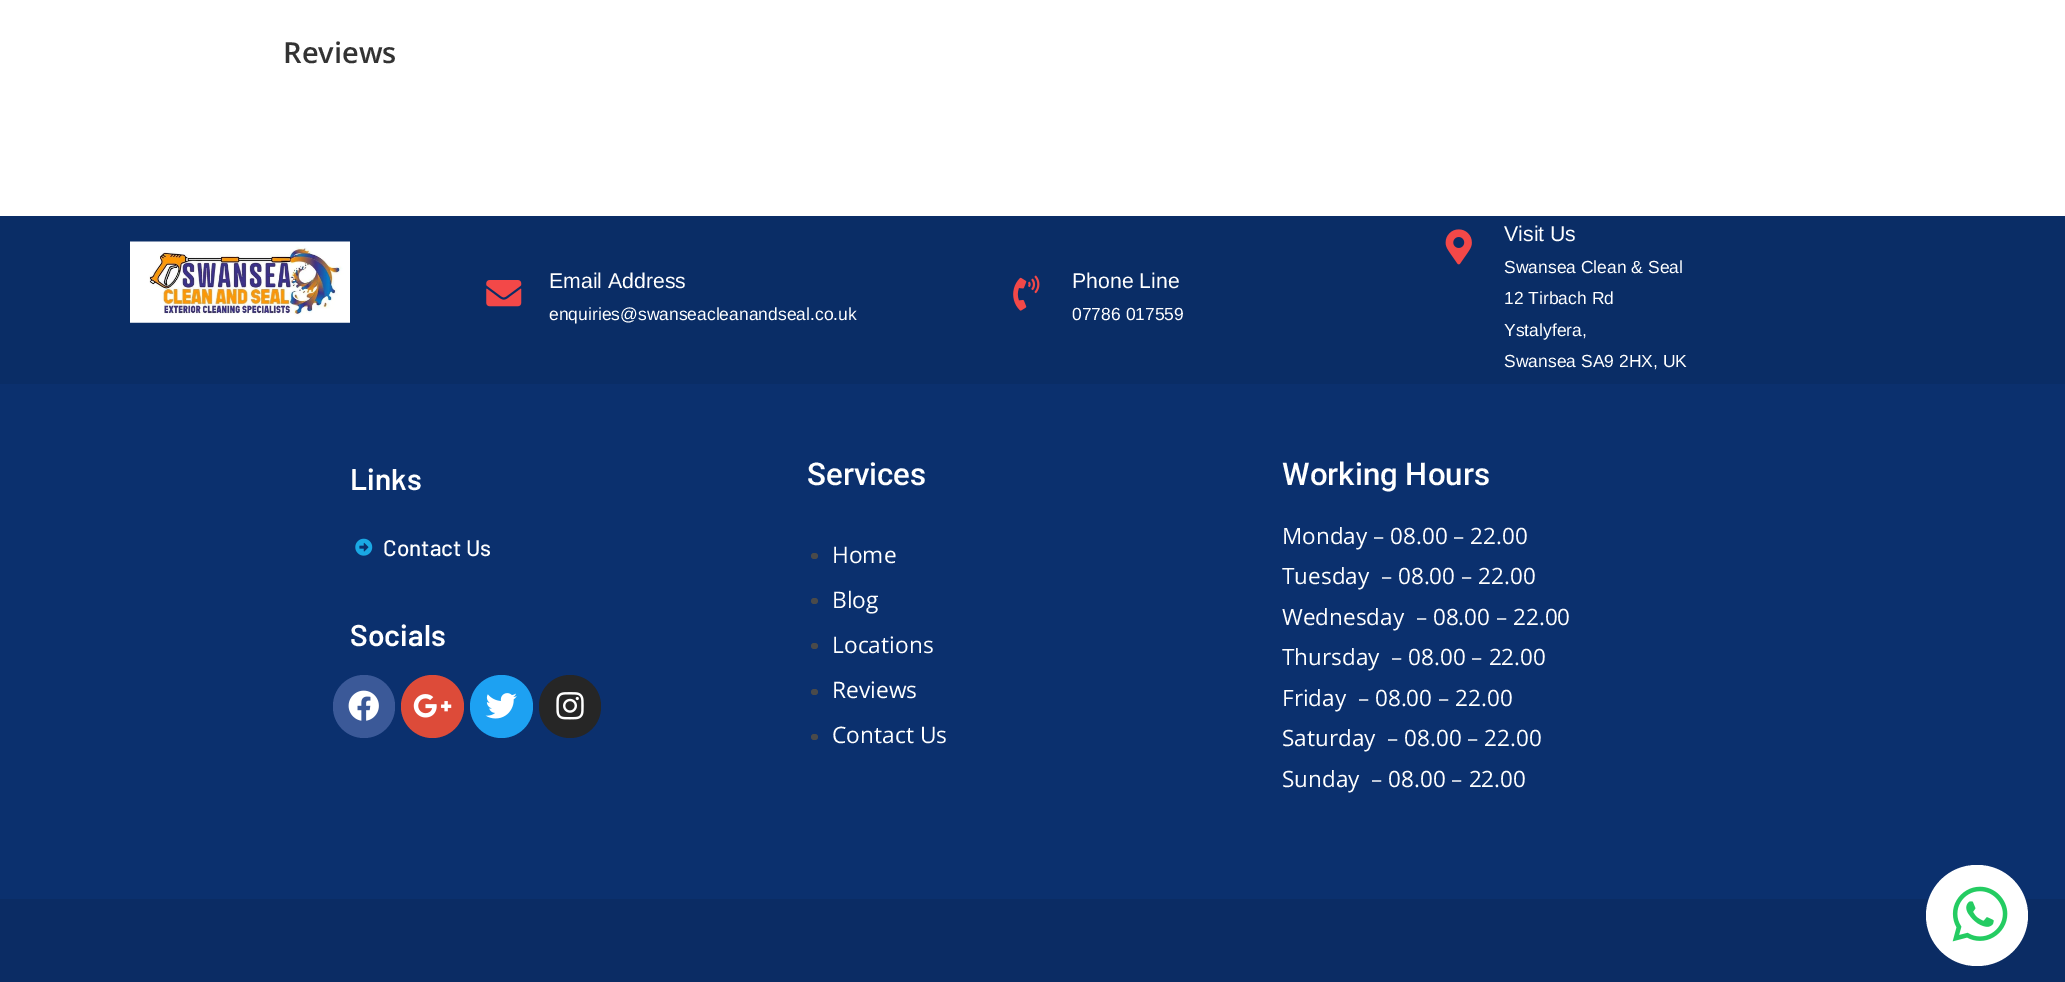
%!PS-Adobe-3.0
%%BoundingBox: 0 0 2065 982
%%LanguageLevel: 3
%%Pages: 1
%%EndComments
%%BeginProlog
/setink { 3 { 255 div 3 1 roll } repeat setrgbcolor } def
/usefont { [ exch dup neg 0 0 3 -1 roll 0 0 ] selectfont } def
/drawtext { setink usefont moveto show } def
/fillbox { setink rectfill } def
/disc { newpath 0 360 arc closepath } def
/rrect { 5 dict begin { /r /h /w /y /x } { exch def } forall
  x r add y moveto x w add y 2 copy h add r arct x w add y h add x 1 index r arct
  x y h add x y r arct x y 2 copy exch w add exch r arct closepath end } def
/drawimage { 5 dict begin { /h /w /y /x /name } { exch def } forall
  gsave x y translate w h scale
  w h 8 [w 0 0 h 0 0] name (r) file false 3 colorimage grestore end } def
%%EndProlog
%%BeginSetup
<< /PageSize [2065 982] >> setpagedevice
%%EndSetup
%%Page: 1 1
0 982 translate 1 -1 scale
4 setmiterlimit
0 0 2065 982 255 255 255 fillbox
(Reviews) 283 63 /OpenSans-SemiBold 29 51 51 51 drawtext
0 216 2065 168 10 45 102 fillbox
(assets/img1.rgb) 130 241 220 82 drawimage
(assets/img2.rgb) 486 280 36 27 drawimage
(Email Address) 549 288 /LiberationSans-Regular 21.25 255 255 255 drawtext
(enquiries@swanseacleanandseal.co.uk) 549 320 /LiberationSans-Regular 17.5 255 255 255 drawtext
(assets/img3.rgb) 1013 275 27 36 drawimage
(Phone Line) 1072 288 /LiberationSans-Regular 21.25 255 255 255 drawtext
(07786 017559) 1072 320 /LiberationSans-Regular 17.5 255 255 255 drawtext
(assets/img4.rgb) 1445 229 27 36 drawimage
(Visit Us) 1504 241 /LiberationSans-Regular 21.25 255 255 255 drawtext
(Swansea Clean & Seal) 1504 273 /LiberationSans-Regular 17.5 255 255 255 drawtext
(12 Tirbach Rd) 1504 304 /LiberationSans-Regular 17.5 255 255 255 drawtext
(Ystalyfera,) 1504 336 /LiberationSans-Regular 17.5 255 255 255 drawtext
(Swansea SA9 2HX, UK) 1504 367 /LiberationSans-Regular 17.5 255 255 255 drawtext
0 384 2065 515 11 48 110 fillbox
(Links) 350 490 /Barlow-SemiBold 30 255 255 255 drawtext
(assets/img5.rgb) 355 538 18 18 drawimage
(Contact Us) 383 556 /Barlow-Medium 22.5 255 255 255 drawtext
(Socials) 350 646 /Barlow-SemiBold 30 255 255 255 drawtext
59 89 152 setink
333 675 62 63 31 rrect fill
(assets/img6.rgb) 348 690 31 31 drawimage
221 75 57 setink
432.5 706.5 31.5 disc fill
(assets/img7.rgb) 413 694 39 24 drawimage
29 161 242 setink
501.5 706.5 31.5 disc fill
(assets/img8.rgb) 485 693 32 26 drawimage
38 38 38 setink
539 675 62 63 31 rrect fill
(assets/img9.rgb) 556 692 28 28 drawimage
(Services) 807 485 /Roboto-Medium 31.25 255 255 255 drawtext
74 74 74 setink
811 553 7 6 3 rrect fill
(Home) 832 563 /OpenSans-Regular 22.75 255 255 255 drawtext
74 74 74 setink
811 598 7 6 3 rrect fill
(Blog) 832 608 /OpenSans-Regular 22.75 255 255 255 drawtext
74 74 74 setink
811 643 7 6 3 rrect fill
(Locations) 832 653 /OpenSans-Regular 22.75 255 255 255 drawtext
74 74 74 setink
811 689 7 6 3 rrect fill
(Reviews) 832 698 /OpenSans-Regular 22.75 255 255 255 drawtext
74 74 74 setink
811 734 7 6 3 rrect fill
(Contact Us) 832 743 /OpenSans-Regular 22.75 255 255 255 drawtext
(Working Hours) 1282 485 /Roboto-Medium 31.25 255 255 255 drawtext
(Monday – 08.00 – 22.00) 1282 544 /OpenSans-Regular 22.5 255 255 255 drawtext
(Tuesday  – 08.00 – 22.00) 1282 584 /OpenSans-Regular 22.5 255 255 255 drawtext
(Wednesday  – 08.00 – 22.00) 1282 625 /OpenSans-Regular 22.5 255 255 255 drawtext
(Thursday  – 08.00 – 22.00) 1282 665 /OpenSans-Regular 22.5 255 255 255 drawtext
(Friday  – 08.00 – 22.00) 1282 706 /OpenSans-Regular 22.5 255 255 255 drawtext
(Saturday  – 08.00 – 22.00) 1282 746 /OpenSans-Regular 22.5 255 255 255 drawtext
(Sunday  – 08.00 – 22.00) 1282 787 /OpenSans-Regular 22.5 255 255 255 drawtext
0 899 2065 83 11 44 100 fillbox
255 255 255 setink
1926 865 102 101 50.5 rrect fill
(assets/img10.rgb) 1952 886 56 56 drawimage
showpage
%%EOF
